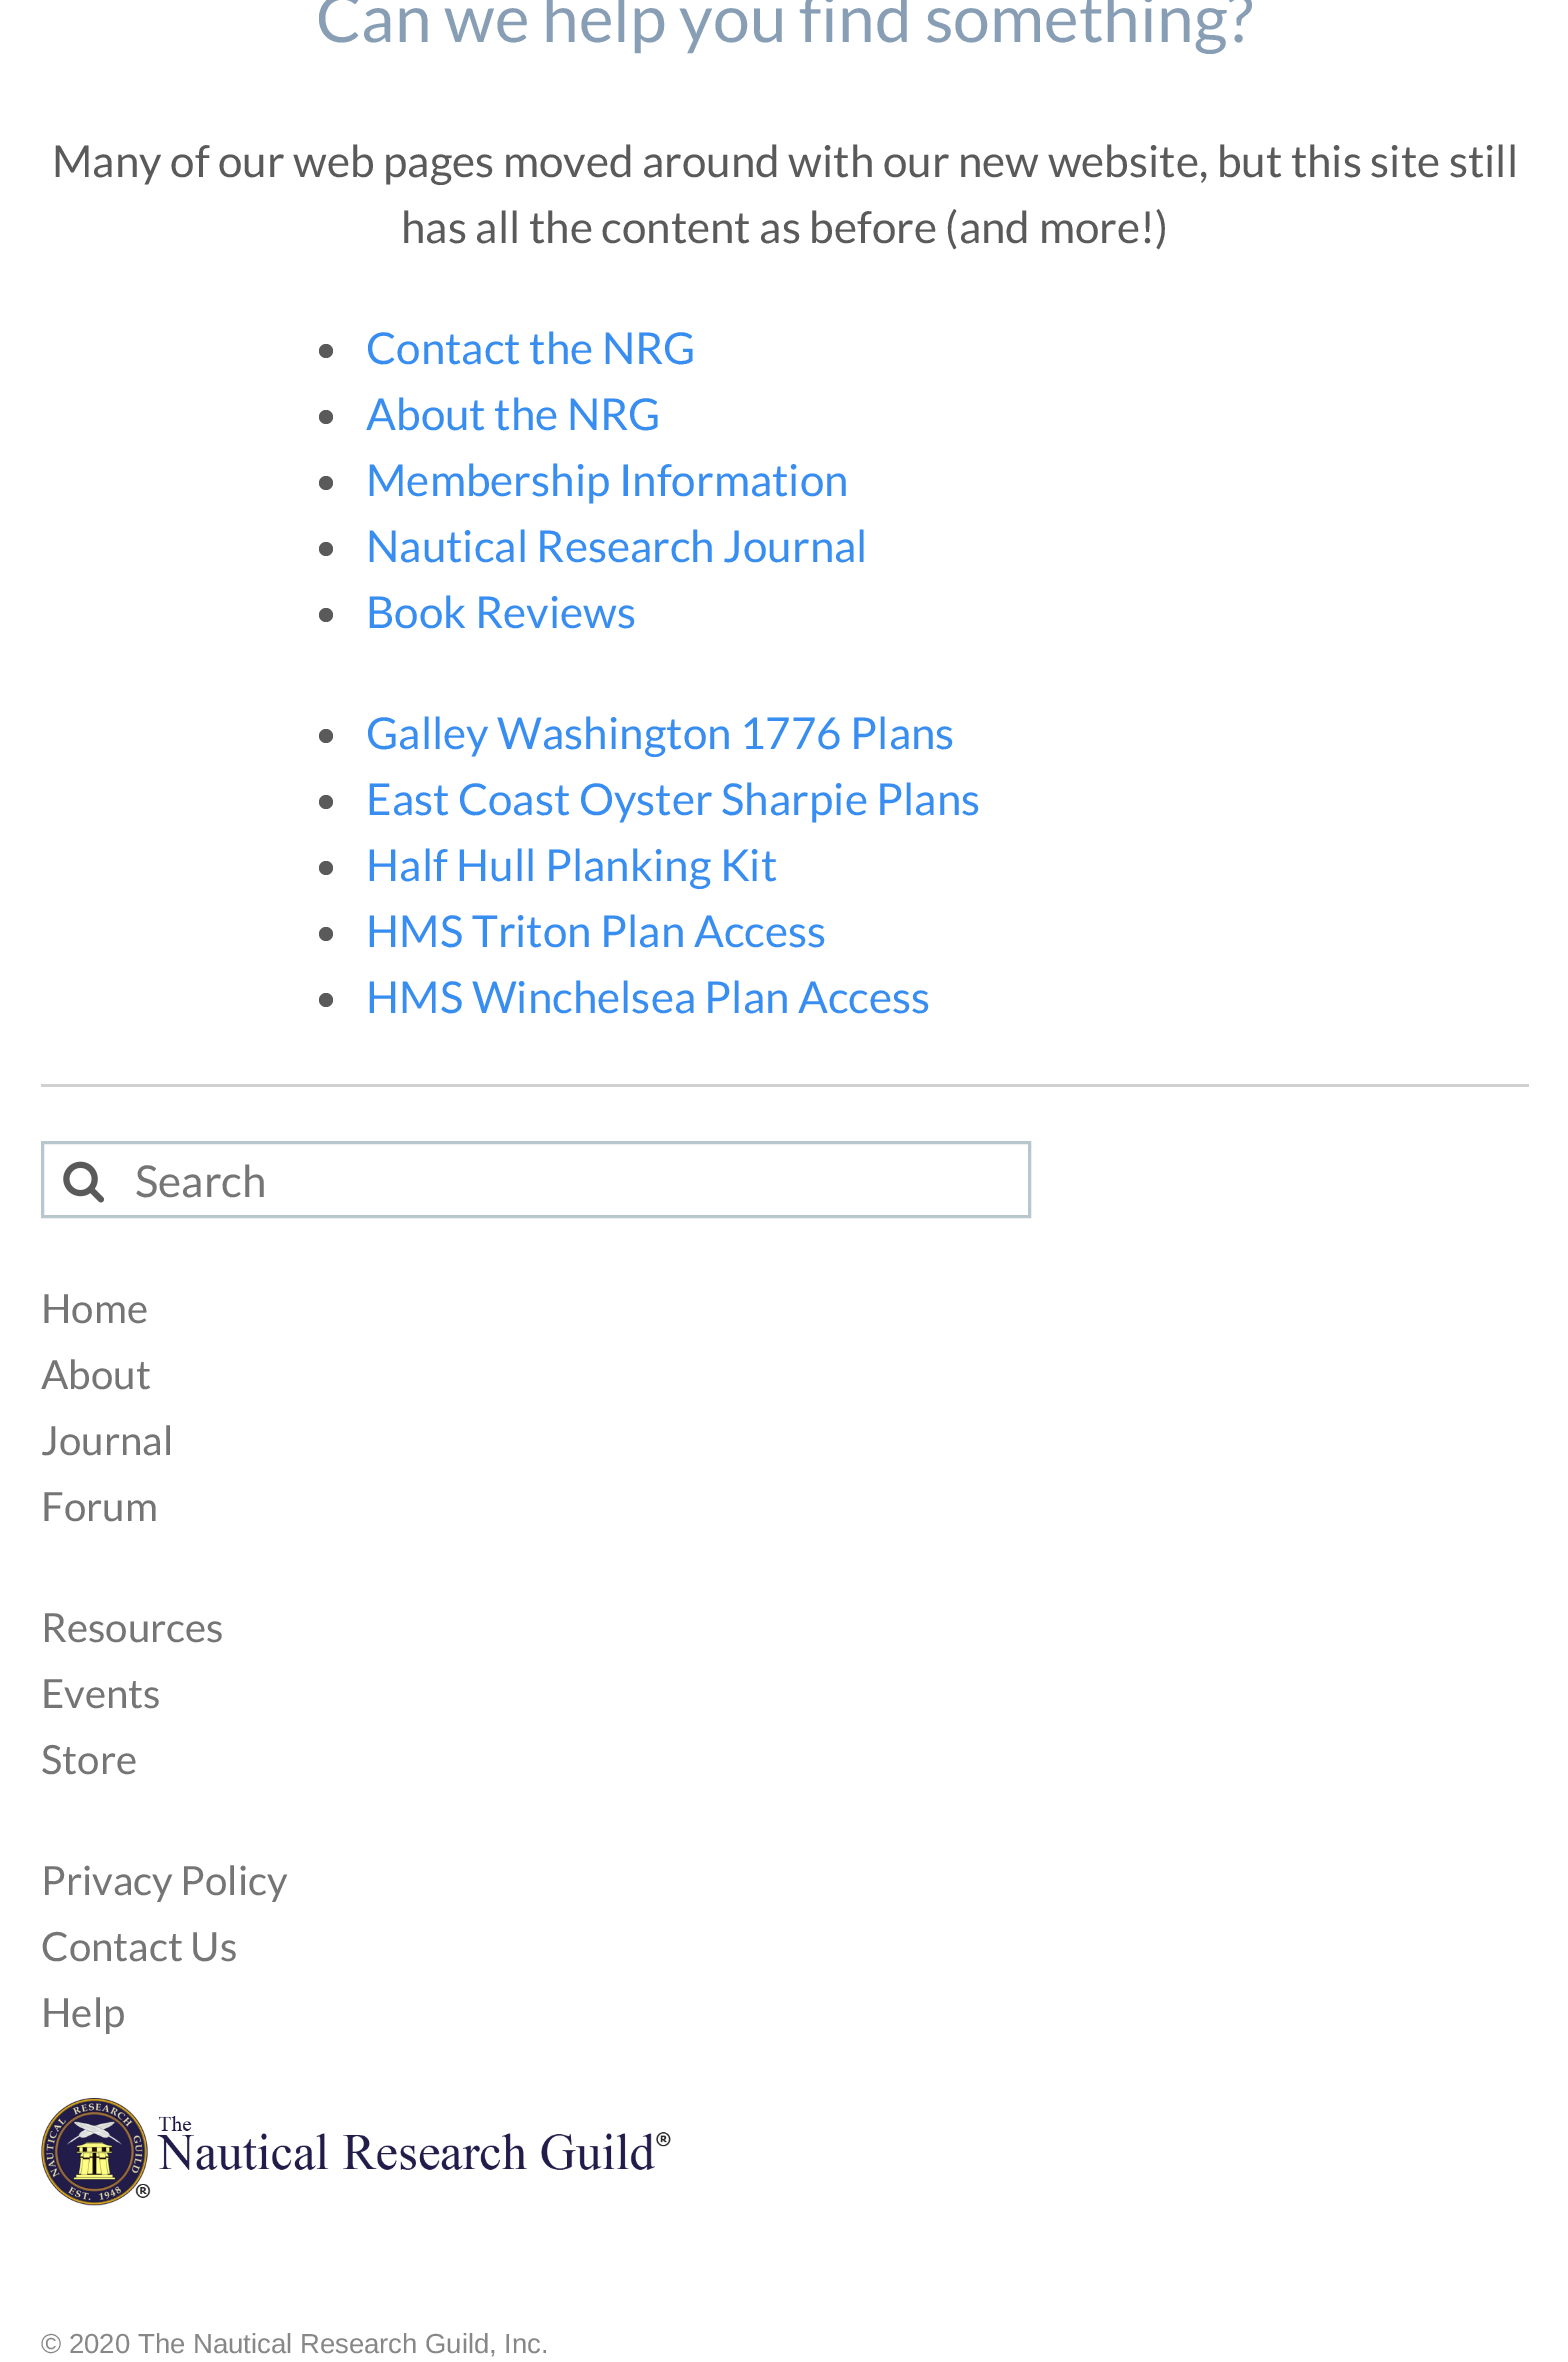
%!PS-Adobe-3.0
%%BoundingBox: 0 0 1568 2362
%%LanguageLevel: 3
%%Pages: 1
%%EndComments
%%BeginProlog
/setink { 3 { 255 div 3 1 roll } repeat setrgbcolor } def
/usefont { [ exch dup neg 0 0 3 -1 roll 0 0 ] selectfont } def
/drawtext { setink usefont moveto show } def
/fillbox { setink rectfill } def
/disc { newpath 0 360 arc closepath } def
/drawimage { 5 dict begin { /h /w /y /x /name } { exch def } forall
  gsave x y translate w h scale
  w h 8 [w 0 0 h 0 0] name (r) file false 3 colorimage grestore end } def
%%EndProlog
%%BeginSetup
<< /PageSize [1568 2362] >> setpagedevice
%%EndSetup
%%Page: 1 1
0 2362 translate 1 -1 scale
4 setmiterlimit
0 0 1568 2362 255 255 255 fillbox
(Can we help you find something?) 316 42 /Lato-Regular 66 136 158 181 drawtext
(Many of our web pages moved around with our new website, but this site still) 52 177 /Lato-Regular 44 90 90 90 drawtext
(has all the content as before \(and more!\)) 401 243 /Lato-Regular 44 90 90 90 drawtext
326 351 7 disc fill
(Contact the NRG) 366 364 /Lato-Regular 44 56 141 241 drawtext
90 90 90 setink
326 417 7 disc fill
(About the NRG) 366 430 /Lato-Regular 44 56 141 241 drawtext
90 90 90 setink
326 483 7 disc fill
(Membership Information) 366 496 /Lato-Regular 44 56 141 241 drawtext
90 90 90 setink
326 549 7 disc fill
(Nautical Research Journal) 366 562 /Lato-Regular 44 56 141 241 drawtext
90 90 90 setink
326 615 7 disc fill
(Book Reviews) 366 628 /Lato-Regular 44 56 141 241 drawtext
90 90 90 setink
326 736 7 disc fill
(Galley Washington 1776 Plans) 366 749 /Lato-Regular 44 56 141 241 drawtext
90 90 90 setink
326 802 7 disc fill
(East Coast Oyster Sharpie Plans) 366 815 /Lato-Regular 44 56 141 241 drawtext
90 90 90 setink
326 868 7 disc fill
(Half Hull Planking Kit) 366 881 /Lato-Regular 44 56 141 241 drawtext
90 90 90 setink
326 934 7 disc fill
(HMS Triton Plan Access) 366 947 /Lato-Regular 44 56 141 241 drawtext
90 90 90 setink
326 1000 7 disc fill
(HMS Winchelsea Plan Access) 366 1013 /Lato-Regular 44 56 141 241 drawtext
41 1084 1488 3 208 208 208 fillbox
184 198 205 setink
3 setlinewidth
42.5 1142.5 987 74 rectstroke
(assets/img1.rgb) 63 1161 42 42 drawimage
(Search) 135 1197 /Lato-Regular 44 117 117 117 drawtext
(Home) 41 1323 /Lato-Regular 40.25 117 117 117 drawtext
(About) 41 1389 /Lato-Regular 40.25 117 117 117 drawtext
(Journal) 41 1455 /Lato-Regular 40.25 117 117 117 drawtext
(Forum) 41 1521 /Lato-Regular 40.25 117 117 117 drawtext
(Resources) 41 1642 /Lato-Regular 40.25 117 117 117 drawtext
(Events) 41 1708 /Lato-Regular 40.25 117 117 117 drawtext
(Store) 41 1774 /Lato-Regular 40.25 117 117 117 drawtext
(Privacy Policy) 41 1895 /Lato-Regular 40.25 117 117 117 drawtext
(Contact Us) 41 1961 /Lato-Regular 40.25 117 117 117 drawtext
(Help) 41 2027 /Lato-Regular 40.25 117 117 117 drawtext
(assets/img2.rgb) 41 2098 630 108 drawimage
(© 2020 The Nautical Research Guild, Inc.) 41 2353 /LiberationSans-Regular 27.5 135 135 135 drawtext
showpage
%%EOF
